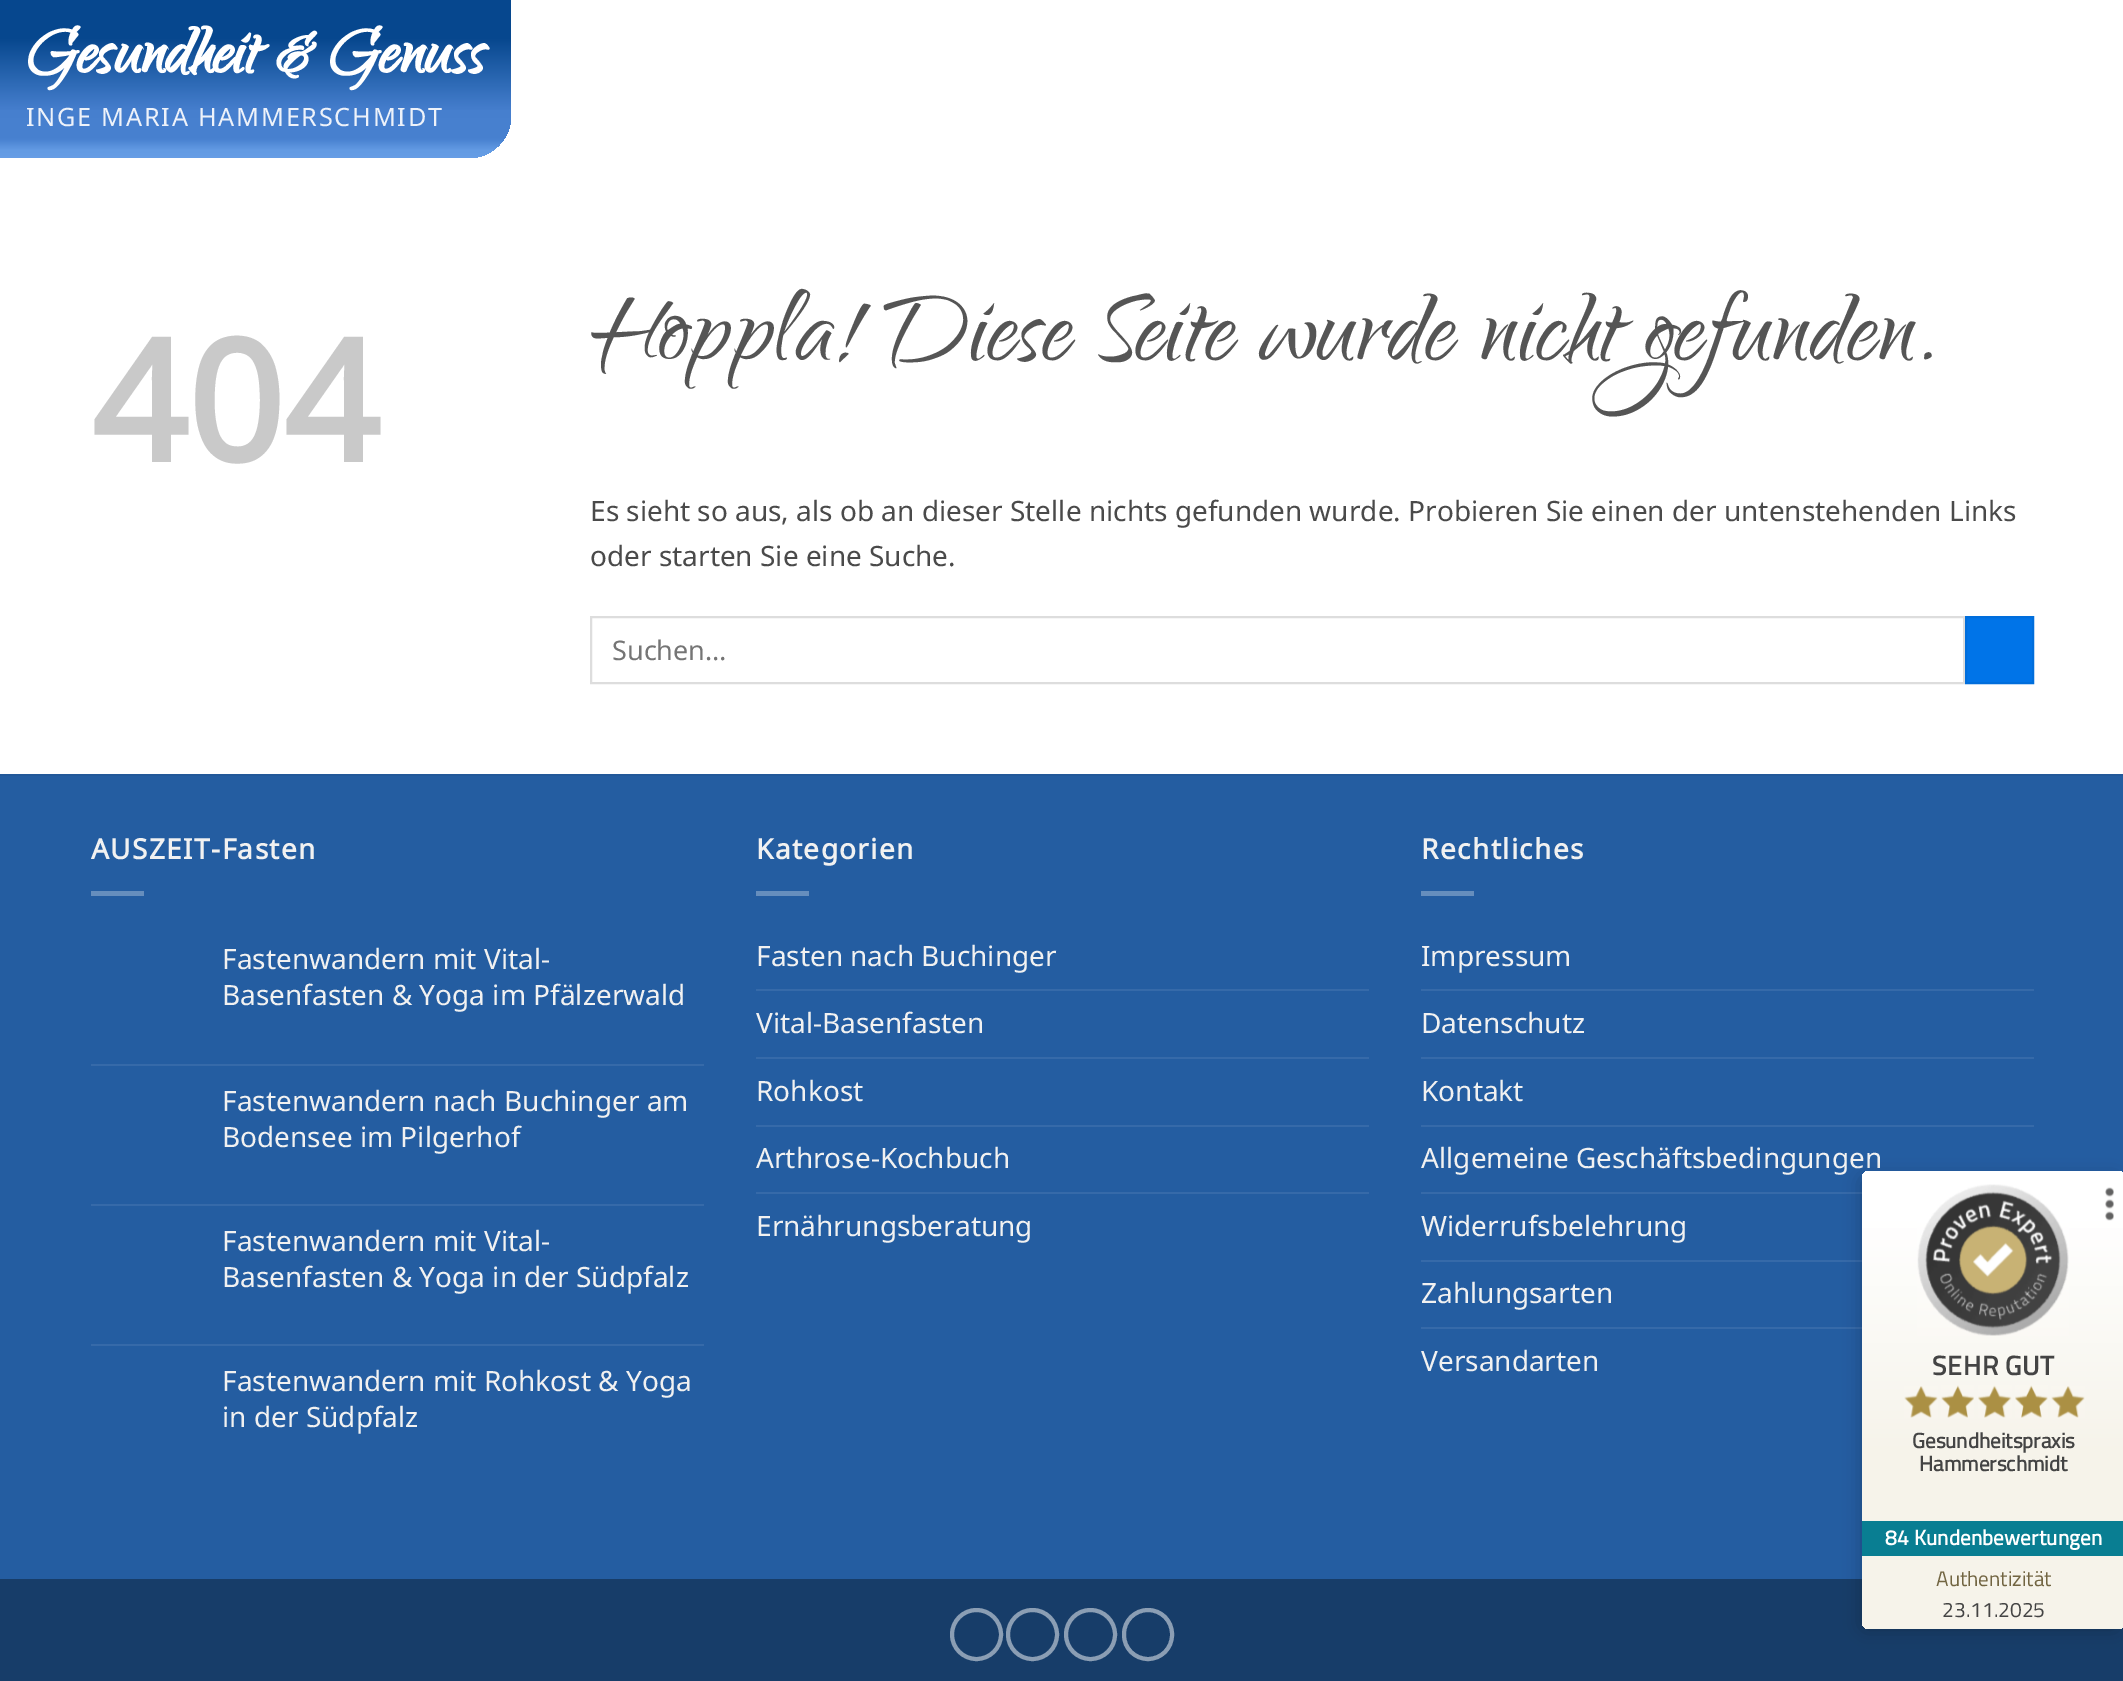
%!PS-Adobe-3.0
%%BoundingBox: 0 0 2123 1681
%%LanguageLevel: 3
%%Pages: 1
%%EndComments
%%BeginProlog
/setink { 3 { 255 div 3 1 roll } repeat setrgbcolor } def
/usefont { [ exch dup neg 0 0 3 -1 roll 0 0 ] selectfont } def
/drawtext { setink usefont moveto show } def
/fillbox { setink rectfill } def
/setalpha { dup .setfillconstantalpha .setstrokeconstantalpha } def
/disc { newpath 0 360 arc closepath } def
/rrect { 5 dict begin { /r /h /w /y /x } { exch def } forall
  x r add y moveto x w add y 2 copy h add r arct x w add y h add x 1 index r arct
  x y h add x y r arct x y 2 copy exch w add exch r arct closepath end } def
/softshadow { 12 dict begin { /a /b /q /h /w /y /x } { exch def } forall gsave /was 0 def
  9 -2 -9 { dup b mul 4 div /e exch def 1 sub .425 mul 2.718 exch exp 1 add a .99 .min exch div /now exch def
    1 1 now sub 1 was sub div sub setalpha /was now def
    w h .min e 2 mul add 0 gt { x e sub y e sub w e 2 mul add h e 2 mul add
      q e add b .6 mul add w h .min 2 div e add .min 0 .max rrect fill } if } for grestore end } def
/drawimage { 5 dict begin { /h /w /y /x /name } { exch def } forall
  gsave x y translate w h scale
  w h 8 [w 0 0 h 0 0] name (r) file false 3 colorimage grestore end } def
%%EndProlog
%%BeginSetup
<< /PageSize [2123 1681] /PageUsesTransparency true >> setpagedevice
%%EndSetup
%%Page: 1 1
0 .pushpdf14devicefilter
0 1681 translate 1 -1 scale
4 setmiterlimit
0 0 2123 1681 255 255 255 fillbox
gsave 0 0 moveto 511 0 lineto 511 116 lineto 511 139 492 158 469 158 curveto 0 158 lineto closepath clip newpath
<< /ShadingType 2 /ColorSpace /DeviceRGB /Coords [256 158 256 0] /Extend [true true] /Function << /FunctionType 3 /Domain [0 1] /Functions [<< /FunctionType 2 /Domain [0 1] /C0 [0.404 0.62 0.902] /C1 [0.388 0.608 0.89] /N 1 >> << /FunctionType 2 /Domain [0 1] /C0 [0.388 0.608 0.89] /C1 [0.282 0.506 0.816] /N 1 >> << /FunctionType 2 /Domain [0 1] /C0 [0.282 0.506 0.816] /C1 [0.275 0.498 0.808] /N 1 >> << /FunctionType 2 /Domain [0 1] /C0 [0.275 0.498 0.808] /C1 [0.024 0.278 0.557] /N 1 >> << /FunctionType 2 /Domain [0 1] /C0 [0.024 0.278 0.557] /C1 [0.024 0.278 0.557] /N 1 >>] /Bounds [0.05 0.12 0.3 0.76] /Encode [0 1 0 1 0 1 0 1 0 1] >> >> shfill grestore
(Gesundheit & Genuss) 26 72 /Qwigley-Bold 84 255 255 255 drawtext
/NotoSans-Regular 25.25 usefont
237 242 250 setink
26 126 moveto 1.75 0 (INGE MARIA HAMMERSCHMIDT) ashow
(404) 91 462 /NotoSans-Bold 168 201 201 201 drawtext
(Hoppla! Diese Seite wurde nicht gefunden.) 590 359 /Qwigley-Regular 126 85 85 85 drawtext
(Es sieht so aus, als ob an dieser Stelle nichts gefunden wurde. Probieren Sie einen der untenstehenden Links) 590 521 /NotoSans-Regular 28 74 74 74 drawtext
(oder starten Sie eine Suche.) 590 566 /NotoSans-Regular 28 74 74 74 drawtext
221 221 221 setink
2 setlinewidth
591 617 1373 66 rectstroke
(Suchen…) 612 660 /NotoSans-Regular 27 117 117 117 drawtext
0 116 232 setink
1966 617 moveto 2033 617 lineto 2033 683 lineto 1966 683 lineto closepath gsave fill grestore
0 110 220 setink
stroke
0 776 2123 803 36 93 161 fillbox
0 774 2123 2 34 88 153 fillbox
/NotoSans-Bold 28 usefont
241 241 241 setink
91 859 moveto 1.4 0 (AUSZEIT-Fasten) ashow
91 891 53 5 102 142 189 fillbox
(Fastenwandern mit Vital-) 222 969 /NotoSans-Regular 28 241 241 241 drawtext
(Basenfasten & Yoga im Pfälzerwald) 222 1005 /NotoSans-Regular 28 241 241 241 drawtext
91 1064 613 2 54 106 169 fillbox
(Fastenwandern nach Buchinger am) 222 1111 /NotoSans-Regular 28 241 241 241 drawtext
(Bodensee im Pilgerhof) 222 1147 /NotoSans-Regular 28 241 241 241 drawtext
91 1204 613 2 54 106 169 fillbox
(Fastenwandern mit Vital-) 222 1251 /NotoSans-Regular 28 241 241 241 drawtext
(Basenfasten & Yoga in der Südpfalz) 222 1287 /NotoSans-Regular 28 241 241 241 drawtext
91 1344 613 2 54 106 169 fillbox
(Fastenwandern mit Rohkost & Yoga) 222 1391 /NotoSans-Regular 28 241 241 241 drawtext
(in der Südpfalz) 222 1427 /NotoSans-Regular 28 241 241 241 drawtext
/NotoSans-Bold 28 usefont
756 859 moveto 1.4 0 (Kategorien) ashow
756 891 53 5 102 142 189 fillbox
(Fasten nach Buchinger) 756 966 /NotoSans-Regular 28 241 241 241 drawtext
756 989 613 2 54 106 169 fillbox
(Vital-Basenfasten) 756 1033 /NotoSans-Regular 28 241 241 241 drawtext
756 1057 613 2 54 106 169 fillbox
(Rohkost) 756 1101 /NotoSans-Regular 28 241 241 241 drawtext
756 1125 613 2 54 106 169 fillbox
(Arthrose-Kochbuch) 756 1168 /NotoSans-Regular 28 241 241 241 drawtext
756 1192 613 2 54 106 169 fillbox
(Ernährungsberatung) 756 1236 /NotoSans-Regular 28 241 241 241 drawtext
/NotoSans-Bold 28 usefont
1421 859 moveto 1.4 0 (Rechtliches) ashow
1421 891 53 5 102 142 189 fillbox
(Impressum) 1421 966 /NotoSans-Regular 28 241 241 241 drawtext
1421 989 613 2 54 106 169 fillbox
(Datenschutz) 1421 1033 /NotoSans-Regular 28 241 241 241 drawtext
1421 1057 613 2 54 106 169 fillbox
(Kontakt) 1421 1101 /NotoSans-Regular 28 241 241 241 drawtext
1421 1125 613 2 54 106 169 fillbox
(Allgemeine Geschäftsbedingungen) 1421 1168 /NotoSans-Regular 28 241 241 241 drawtext
1421 1192 441 2 54 106 169 fillbox
(Widerrufsbelehrung) 1421 1236 /NotoSans-Regular 28 241 241 241 drawtext
1421 1260 441 2 54 106 169 fillbox
(Zahlungsarten) 1421 1303 /NotoSans-Regular 28 241 241 241 drawtext
1421 1327 441 2 54 106 169 fillbox
(Versandarten) 1421 1371 /NotoSans-Regular 28 241 241 241 drawtext
0 1579 2123 102 23 61 105 fillbox
139 158 180 setink
4 setlinewidth
976.5 1634.5 24.5 disc stroke
1032.5 1634.5 24.5 disc stroke
1090.5 1634.5 24.5 disc stroke
1124 1610 48 49 24 rrect stroke
0 0 0 setink
1862 1178 256 451 4 9 0.25 softshadow
gsave 1862 1171 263 458 7 rrect clip newpath
<< /ShadingType 2 /ColorSpace /DeviceRGB /Coords [1993 1629 1993 1171] /Extend [true true] /Function << /FunctionType 3 /Domain [0 1] /Functions [<< /FunctionType 2 /Domain [0 1] /C0 [0.965 0.953 0.918] /C1 [0.965 0.953 0.918] /N 1 >> << /FunctionType 2 /Domain [0 1] /C0 [0.965 0.953 0.918] /C1 [1 1 1] /N 1 >> << /FunctionType 2 /Domain [0 1] /C0 [1 1 1] /C1 [1 1 1] /N 1 >>] /Bounds [0.37 0.9] /Encode [0 1 0 1 0 1] >> >> shfill grestore
(assets/img1.rgb) 1917 1184 152 152 drawimage
(assets/img2.rgb) 2105 1187 9 34 drawimage
(SEHR GUT) 1932 1375 /TitilliumWeb-SemiBold 28 68 68 68 drawtext
(assets/img3.rgb) 1904 1386 34 32 drawimage
(assets/img4.rgb) 1941 1385 33 33 drawimage
(assets/img5.rgb) 1978 1385 34 33 drawimage
(assets/img6.rgb) 2015 1385 33 33 drawimage
(assets/img3.rgb) 2051 1386 34 32 drawimage
(Gesundheitspraxis) 1912 1448 /TitilliumWeb-Bold 21 68 68 68 drawtext
(Hammerschmidt) 1919 1471 /TitilliumWeb-Bold 21 68 68 68 drawtext
1862 1521 261 35 9 126 146 fillbox
255 255 255 setink
1885 1545 moveto 0.2 0 (84 Kundenbewertungen) ashow
(Authentizität) 1936 1586 /TitilliumWeb-Regular 21 114 101 66 drawtext
(23.11.2025) 1942 1617 /TitilliumWeb-Regular 21 68 68 68 drawtext
.poppdf14devicefilter showpage
%%EOF
